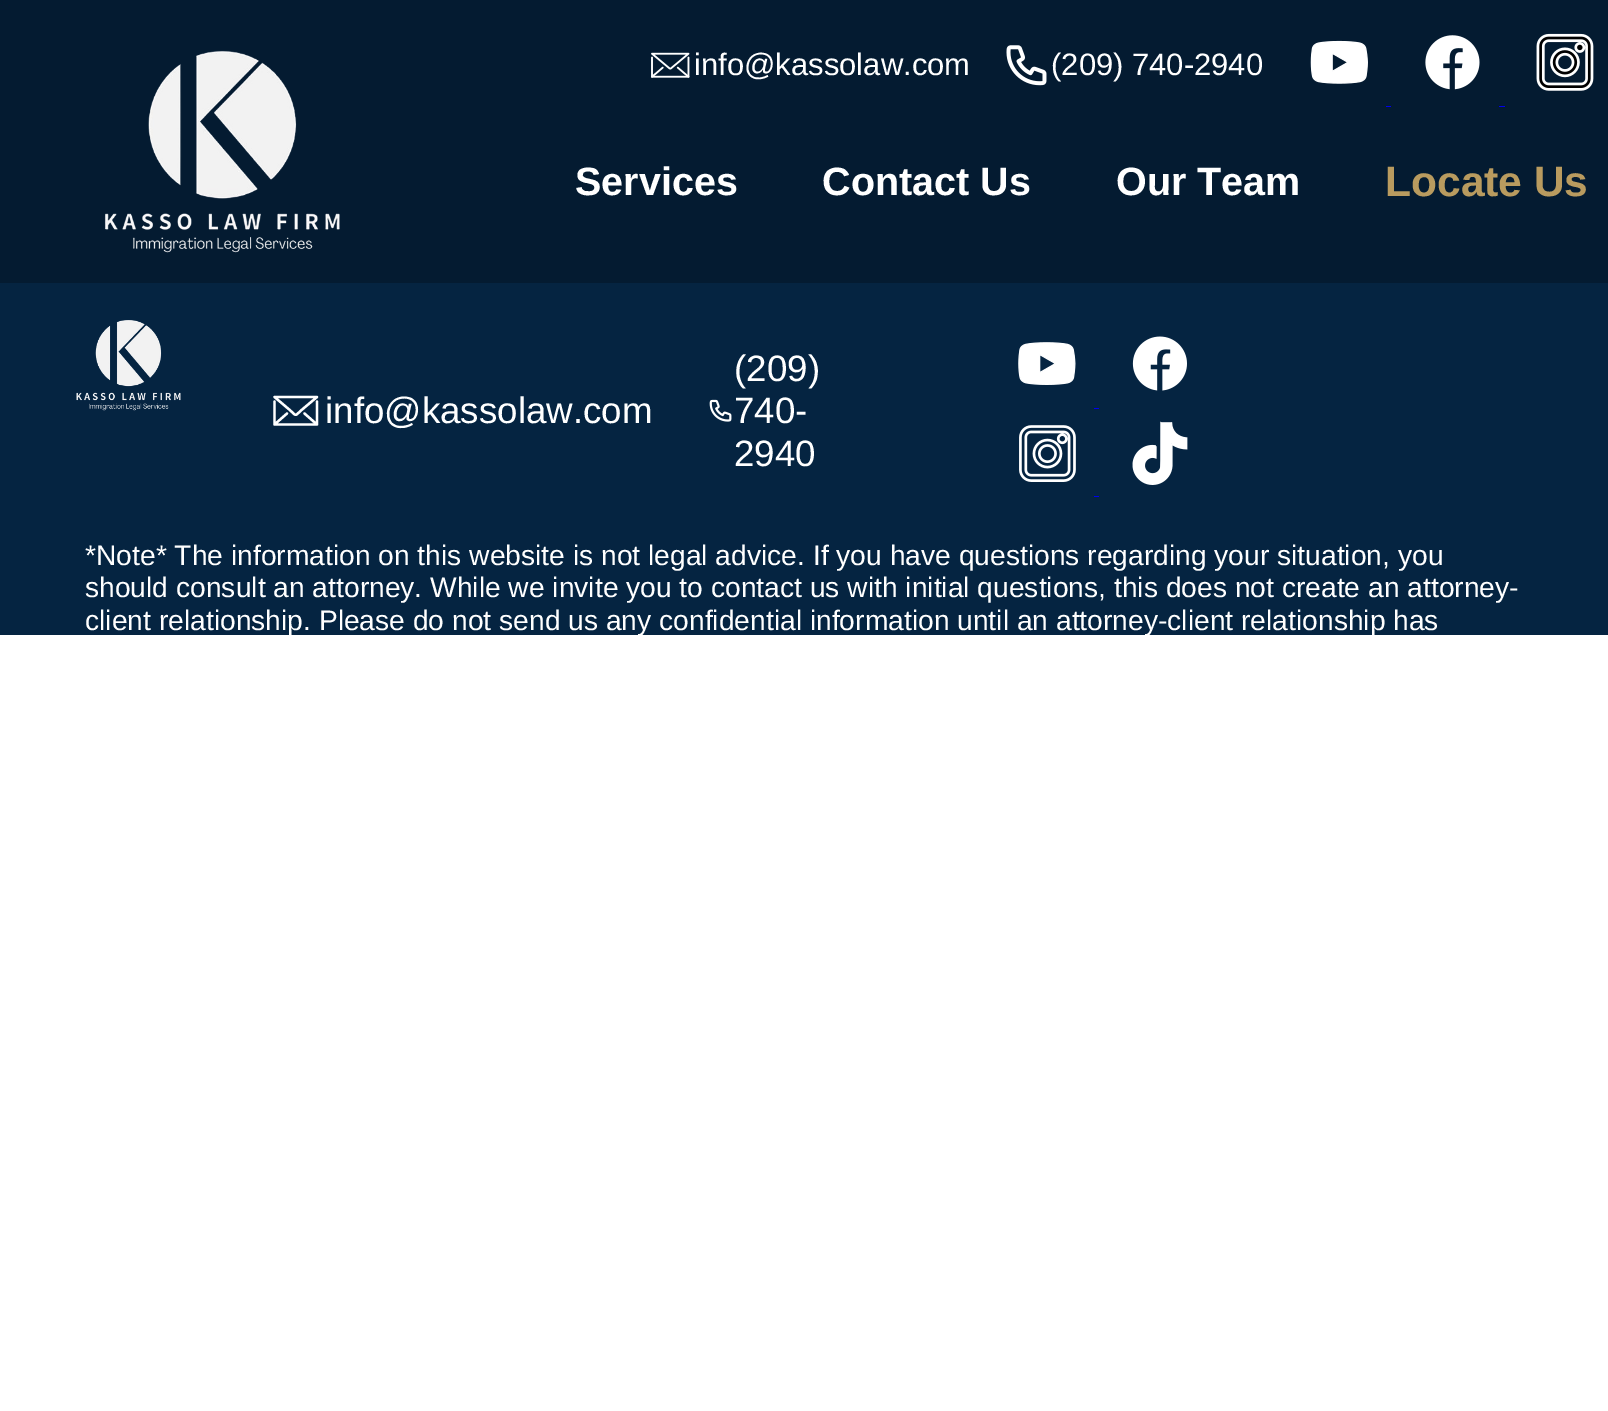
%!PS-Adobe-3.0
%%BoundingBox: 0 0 1608 1411
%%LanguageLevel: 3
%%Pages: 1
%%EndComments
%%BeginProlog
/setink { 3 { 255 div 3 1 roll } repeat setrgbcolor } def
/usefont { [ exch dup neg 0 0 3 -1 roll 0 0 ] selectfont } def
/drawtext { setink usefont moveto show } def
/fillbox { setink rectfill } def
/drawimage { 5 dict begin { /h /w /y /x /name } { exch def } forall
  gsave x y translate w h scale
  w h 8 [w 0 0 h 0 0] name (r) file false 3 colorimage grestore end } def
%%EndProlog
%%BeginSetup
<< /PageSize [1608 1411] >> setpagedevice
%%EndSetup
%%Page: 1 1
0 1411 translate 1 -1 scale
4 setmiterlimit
0 0 1608 1411 255 255 255 fillbox
0 0 1608 283 4 27 49 fillbox
(assets/img1.rgb) 104 50 236 203 drawimage
(assets/img2.rgb) 651 52 39 26 drawimage
(info@kassolaw.com) 694 75 /LiberationSans-Regular 31 255 255 255 drawtext
(assets/img3.rgb) 1006 45 41 41 drawimage
(\(209\) 740-2940) 1051 75 /LiberationSans-Regular 31 255 255 255 drawtext
(assets/img4.rgb) 1310 40 58 44 drawimage
(assets/img5.rgb) 1425 35 55 55 drawimage
(assets/img6.rgb) 1536 33 58 58 drawimage
1386 106 5 1 0 0 238 fillbox
1499 106 6 1 0 0 238 fillbox
(Services) 575 195 /LiberationSans-Bold 39.5 255 255 255 drawtext
(Contact Us) 822 195 /LiberationSans-Bold 39.5 255 255 255 drawtext
(Our Team) 1116 195 /LiberationSans-Bold 39.5 255 255 255 drawtext
(Locate Us) 1385 196 /LiberationSans-Bold 42.5 185 155 95 drawtext
0 283 1608 352 5 36 65 fillbox
(assets/img7.rgb) 76 320 105 91 drawimage
255 255 255 setink
2.3 setlinewidth
1 setlinecap
1 setlinejoin
317 397 moveto 301 410.5 lineto 294 417 297 416 288 408.5 curveto 274.5 397 lineto closepath 317 424.5 moveto 304.5 413.5 lineto 287 413.5 moveto 274.5 424.5 lineto 317 401.5 moveto 317 424.5 lineto 274.5 424.5 lineto 274.5 401.5 lineto stroke
(info@kassolaw.com) 325 423 /LiberationSans-Regular 36.75 255 255 255 drawtext
(assets/img8.rgb) 709 399 23 23 drawimage
(\(209\)) 734 381 /LiberationSans-Regular 36.75 255 255 255 drawtext
(740-) 734 423 /LiberationSans-Regular 36.75 255 255 255 drawtext
(2940) 734 466 /LiberationSans-Regular 36.75 255 255 255 drawtext
(assets/img9.rgb) 1018 342 58 43 drawimage
(assets/img10.rgb) 1132 336 55 55 drawimage
1094 408 5 1 0 0 238 fillbox
(assets/img11.rgb) 1019 425 57 57 drawimage
(assets/img12.rgb) 1132 421 56 64 drawimage
1094 496 5 1 0 0 238 fillbox
(*Note* The information on this website is not legal advice. If you have questions regarding your situation, you) 85 565 /LiberationSans-Regular 28.22 255 255 255 drawtext
(should consult an attorney. While we invite you to contact us with initial questions, this does not create an attorney-) 85 597 /LiberationSans-Regular 28.22 255 255 255 drawtext
(client relationship. Please do not send us any confidential information until an attorney-client relationship has) 85 630 /LiberationSans-Regular 28.22 255 255 255 drawtext
showpage
%%EOF
